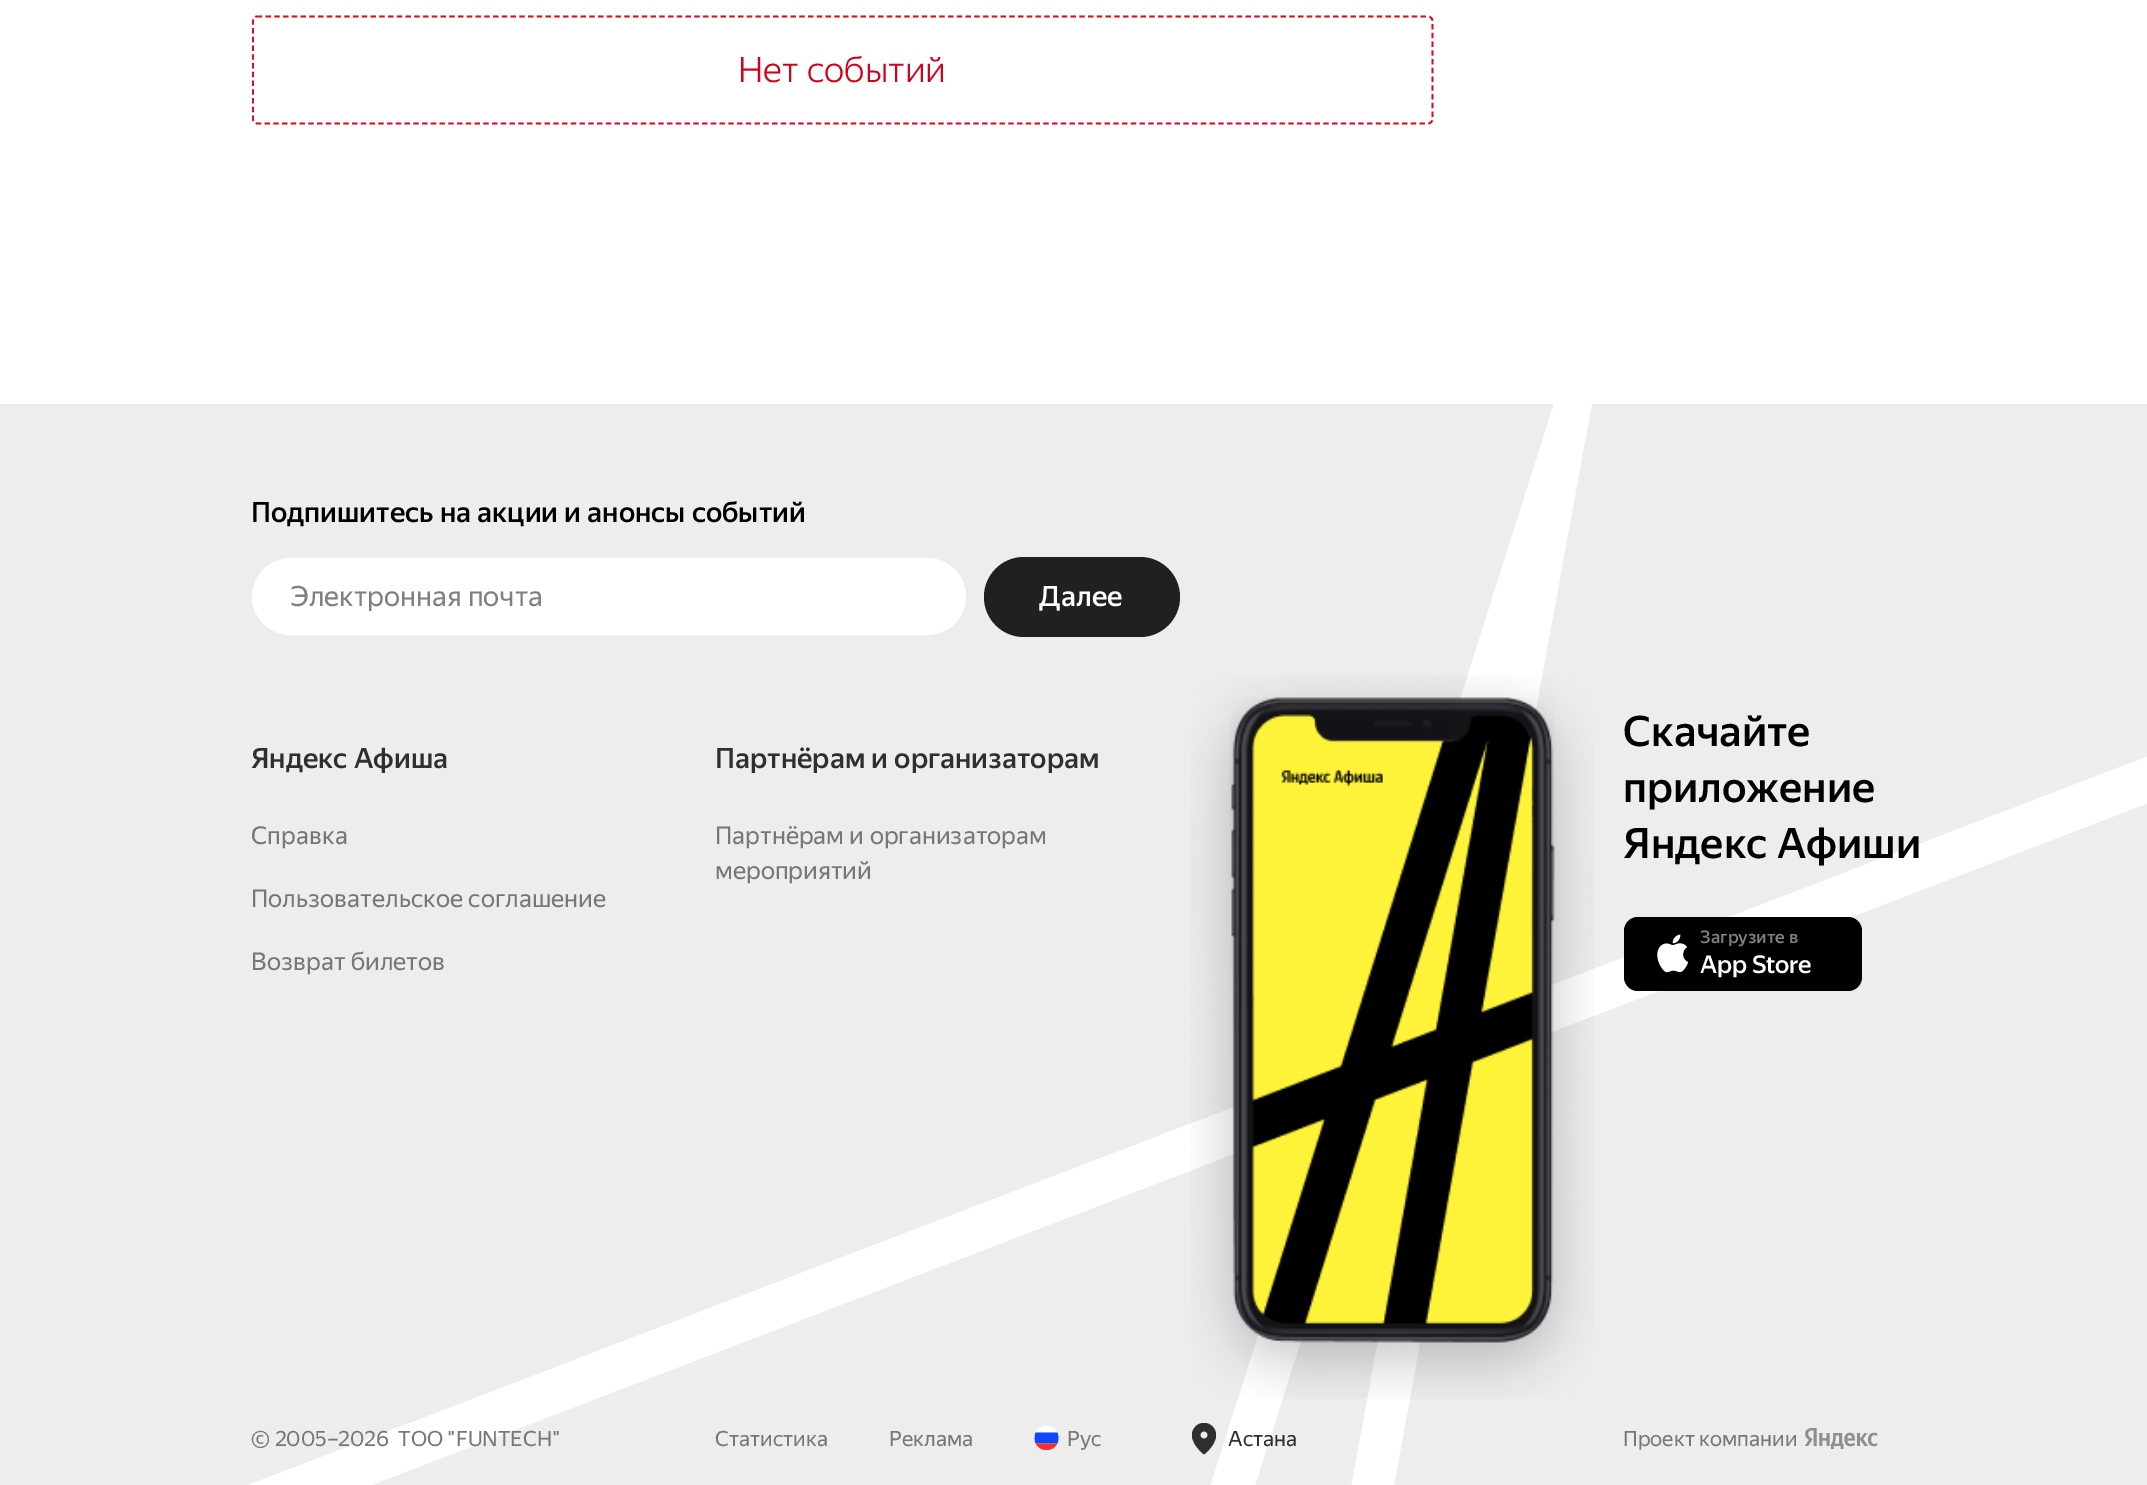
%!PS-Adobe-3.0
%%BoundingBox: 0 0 2147 1485
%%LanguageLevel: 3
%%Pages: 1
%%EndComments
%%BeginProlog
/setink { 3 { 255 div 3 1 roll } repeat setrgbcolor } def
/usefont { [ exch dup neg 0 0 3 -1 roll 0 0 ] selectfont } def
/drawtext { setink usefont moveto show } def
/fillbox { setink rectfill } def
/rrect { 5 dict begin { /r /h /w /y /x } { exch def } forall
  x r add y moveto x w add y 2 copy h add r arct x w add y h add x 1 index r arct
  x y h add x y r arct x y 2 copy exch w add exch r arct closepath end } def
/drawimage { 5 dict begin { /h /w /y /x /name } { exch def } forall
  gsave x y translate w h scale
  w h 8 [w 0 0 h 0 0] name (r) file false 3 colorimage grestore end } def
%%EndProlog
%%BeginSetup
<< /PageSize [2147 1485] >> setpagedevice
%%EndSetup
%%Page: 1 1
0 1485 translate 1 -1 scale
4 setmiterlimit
0 0 2147 1485 255 255 255 fillbox
223 11 34 setink
1.8 setlinewidth
[5.25 3.5] 0 setdash
257 16.5 moveto 1428 16.5 lineto 1430.5 16.5 1432.5 18.5 1432.5 21 curveto 1432.5 119 lineto 1432.5 121.5 1430.5 123.5 1428 123.5 curveto 257 123.5 lineto 255 123.5 253 121.5 253 119 curveto 253 21 lineto 253 18.5 255 16.5 257 16.5 curveto closepath stroke
(Нет событий) 738 82 /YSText-Light 35 208 2 27 drawtext
0 404 2147 1081 237 237 237 fillbox
(Подпишитесь на акции и анонсы событий) 251 522 /YSText-Medium 28 0 0 0 drawtext
255 255 255 setink
254 560 710 73 36.5 rrect gsave fill grestore
4 setlinewidth
[] 0 setdash
stroke
(Электронная почта) 290 606 /YSText-Regular 28 128 128 128 drawtext
32 32 32 setink
984 557 196 80 40 rrect fill
(Далее) 1039 606 /YSText-Medium 28 255 255 255 drawtext
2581 637 moveto 38 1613 lineto 24 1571 lineto 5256 -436 lineto 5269 -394 lineto closepath eofill
(Яндекс Афиша) 251 768 /YSText-Medium 28 47 47 47 drawtext
(Справка) 251 844 /YSText-Regular 24.5 119 119 119 drawtext
(Пользовательское соглашение) 251 907 /YSText-Regular 24.5 119 119 119 drawtext
(Возврат билетов) 251 970 /YSText-Regular 24.5 119 119 119 drawtext
(Партнёрам и организаторам) 715 768 /YSText-Medium 28 47 47 47 drawtext
(Партнёрам и организаторам) 715 844 /YSText-Regular 24.5 119 119 119 drawtext
(мероприятий) 715 879 /YSText-Regular 24.5 119 119 119 drawtext
(© 2005–) 251 1446 /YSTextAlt-Regular 21 119 119 119 drawtext
(2026) 338 1446 /YSTextAlt-Regular 21 119 119 119 drawtext
(ТОО "FUNTECH") 398 1446 /YSText-Regular 21 119 119 119 drawtext
(Статистика) 715 1446 /YSText-Regular 21 119 119 119 drawtext
(Реклама) 889 1446 /YSText-Regular 21 119 119 119 drawtext
(assets/img1.rgb) 1034 1426 25 24 drawimage
(Рус) 1067 1446 /YSText-Regular 21 119 119 119 drawtext
gsave
1160 404 433 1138 rectclip
255 255 255 setink
1303 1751 moveto 1538 464 lineto 1554 403 lineto 1592 403 lineto 1344 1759 lineto closepath eofill
grestore
255 255 255 setink
1115 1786 moveto 1552 410 lineto 1590 410 lineto 1576 476 lineto 1156 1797 lineto closepath eofill
(assets/img2.rgb) 1192 1423 24 32 drawimage
(Астана) 1228 1446 /YSText-Regular 21 47 47 47 drawtext
(assets/img3.rgb) 1191 676 403 723 drawimage
(Скачайте) 1623 746 /YSText-Medium 42 0 0 0 drawtext
(приложение) 1623 802 /YSText-Medium 42 0 0 0 drawtext
(Яндекс Афиши) 1623 858 /YSText-Medium 42 0 0 0 drawtext
1624 917 238 74 14 rrect fill
(assets/img4.rgb) 1657 934 32 39 drawimage
(Загрузите в) 1700 943 /YSText-Medium 17.5 128 128 128 drawtext
/YSText-Medium 24.5 usefont
255 255 255 setink
1700 973 moveto -0.25 0 (App Store) ashow
(Проект компании) 1623 1446 /YSText-Regular 21 119 119 119 drawtext
(assets/img5.rgb) 1805 1428 73 21 drawimage
showpage
%%EOF
